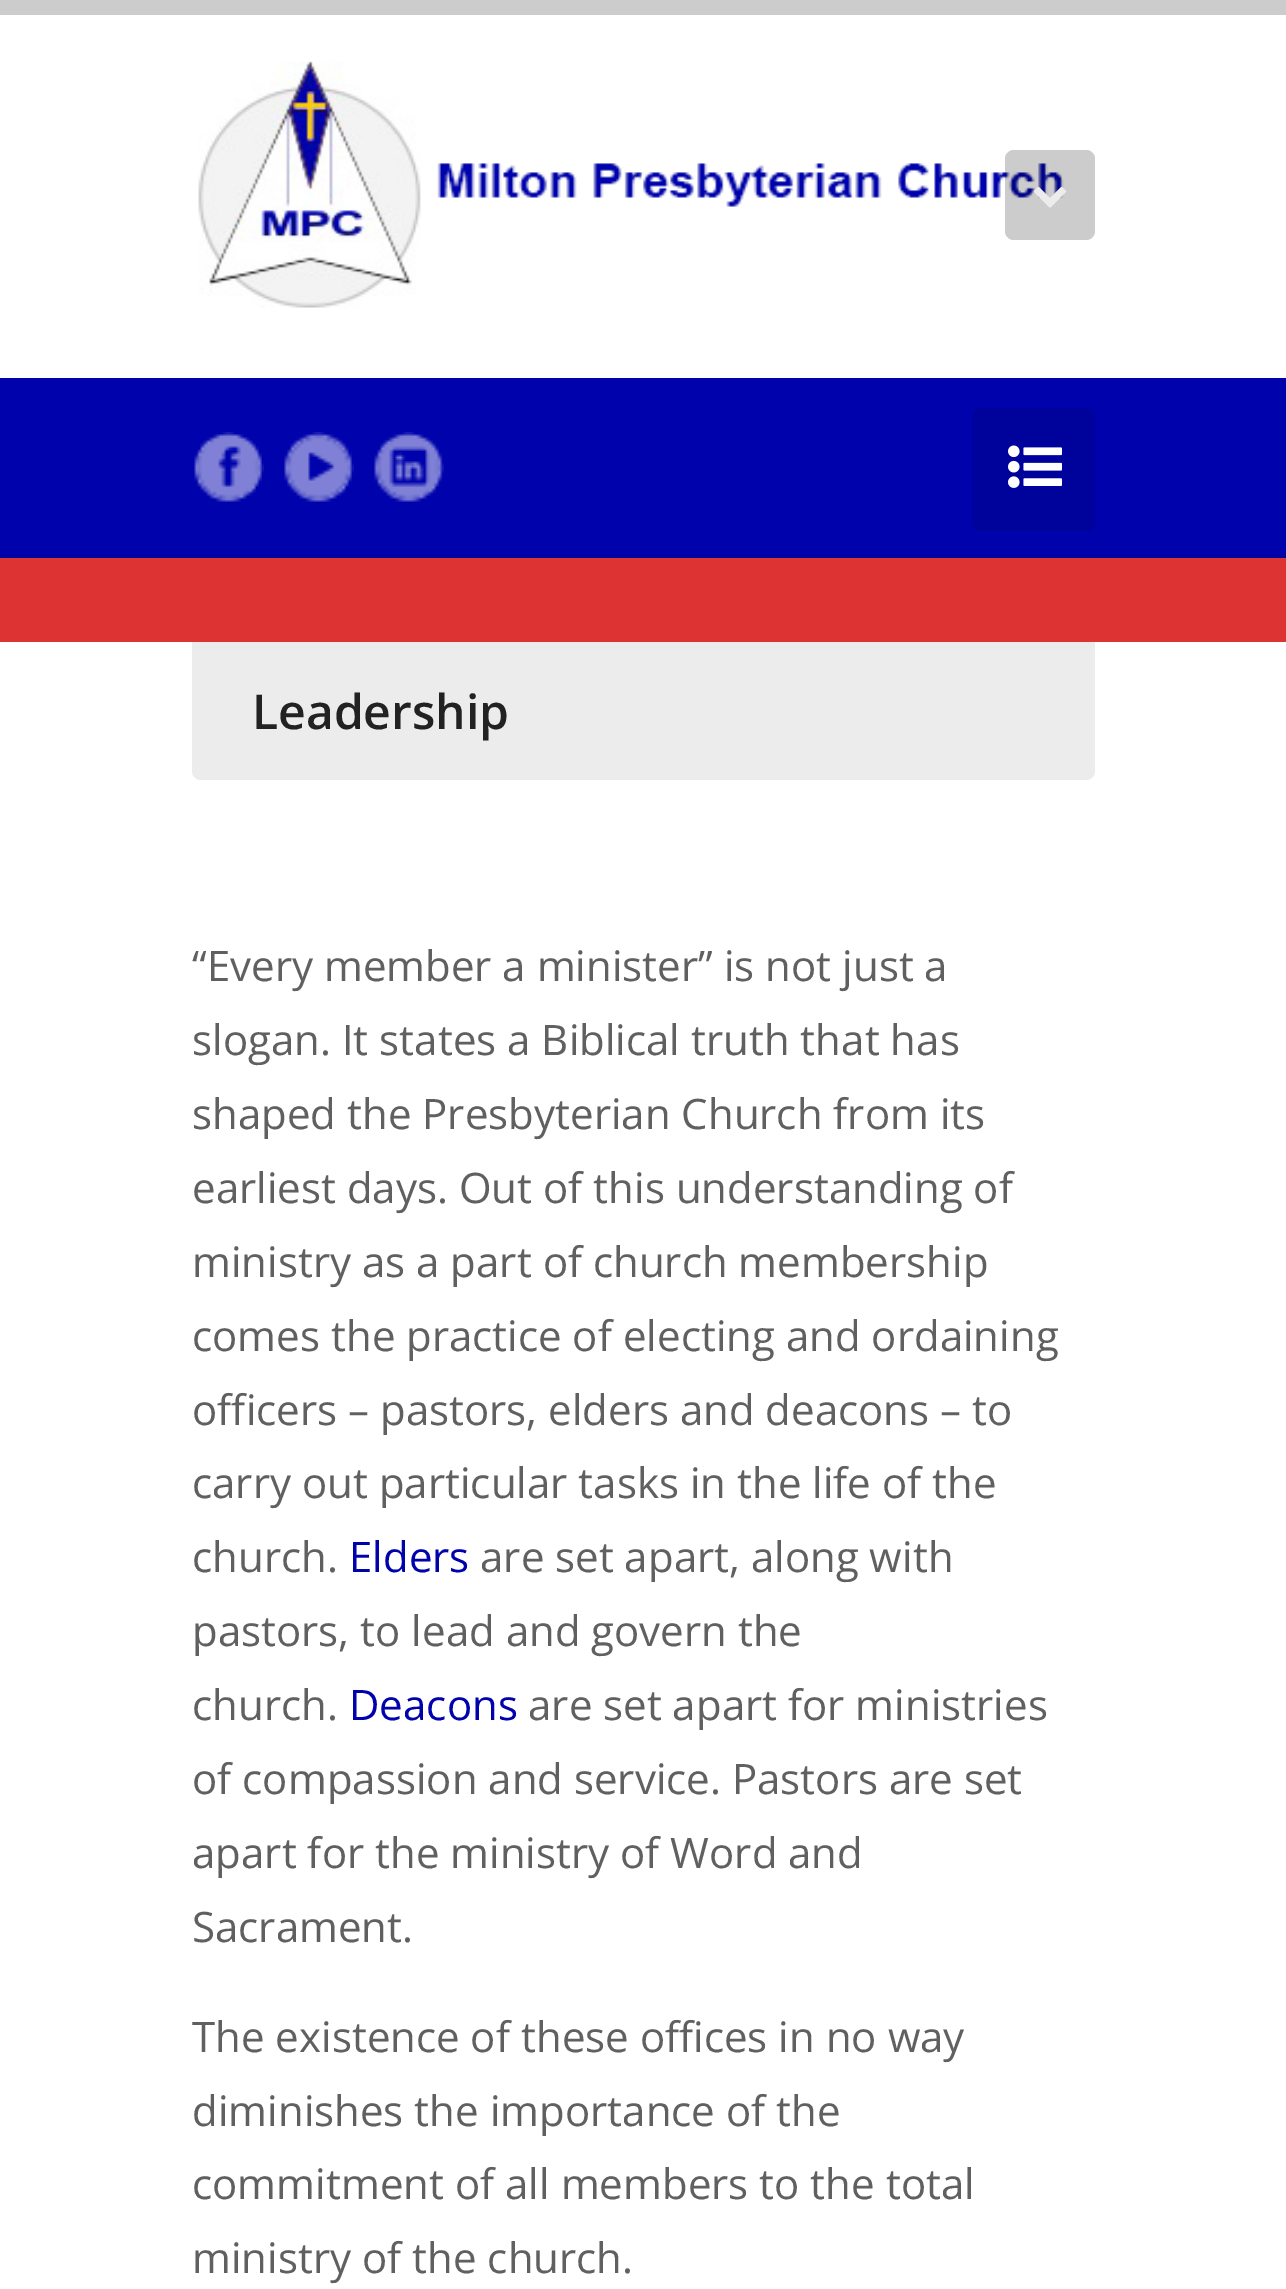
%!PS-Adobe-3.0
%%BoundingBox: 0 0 1286 2289
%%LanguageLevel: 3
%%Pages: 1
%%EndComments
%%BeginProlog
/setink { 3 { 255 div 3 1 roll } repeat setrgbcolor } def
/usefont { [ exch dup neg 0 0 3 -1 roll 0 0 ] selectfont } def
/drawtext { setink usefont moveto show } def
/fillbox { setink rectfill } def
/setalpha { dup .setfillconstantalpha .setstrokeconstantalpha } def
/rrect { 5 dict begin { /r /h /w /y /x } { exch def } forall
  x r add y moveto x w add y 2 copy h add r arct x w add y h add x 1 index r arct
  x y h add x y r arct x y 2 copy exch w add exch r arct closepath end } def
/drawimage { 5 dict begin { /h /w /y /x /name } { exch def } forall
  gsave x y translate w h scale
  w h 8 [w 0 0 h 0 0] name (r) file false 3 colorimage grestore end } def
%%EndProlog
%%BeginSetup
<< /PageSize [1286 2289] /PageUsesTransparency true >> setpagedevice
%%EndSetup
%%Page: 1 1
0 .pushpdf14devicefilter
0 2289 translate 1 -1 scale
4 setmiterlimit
0 0 1286 2289 255 255 255 fillbox
0 0 1286 15 204 204 204 fillbox
(assets/img1.rgb) 198 61 866 247 drawimage
0.2 setalpha
0 0 0 setink
1005 150 90 90 9 rrect fill
1 setalpha
(assets/img2.rgb) 1033 186 34 22 drawimage
0 378 1286 177 0 3 172 fillbox
(assets/img3.rgb) 194 432 70 70 drawimage
(assets/img4.rgb) 284 432 70 70 drawimage
(assets/img5.rgb) 374 432 70 70 drawimage
0 3 155 setink
972 408 123 123 9 rrect fill
(assets/img6.rgb) 1008 445 54 43 drawimage
0 555 1286 3 0 3 158 fillbox
0 558 1286 84 221 51 51 fillbox
236 236 236 setink
192 642 moveto 1095 642 lineto 1095 771 lineto 1095 776 1091 780 1086 780 curveto 201 780 lineto 196 780 192 776 192 771 curveto closepath fill
(Leadership) 252 729 /OpenSans-SemiBold 48 34 34 34 drawtext
(“Every member a minister” is not just a) 192 981 /OpenSans-Regular 42 96 96 96 drawtext
(slogan. It states a Biblical truth that has) 192 1055 /OpenSans-Regular 42 96 96 96 drawtext
(shaped the Presbyterian Church from its) 192 1129 /OpenSans-Regular 42 96 96 96 drawtext
(earliest days. Out of this understanding of) 192 1203 /OpenSans-Regular 42 96 96 96 drawtext
(ministry as a part of church membership) 192 1277 /OpenSans-Regular 42 96 96 96 drawtext
(comes the practice of electing and ordaining) 192 1351 /OpenSans-Regular 42 96 96 96 drawtext
(officers – pastors, elders and deacons – to) 192 1425 /OpenSans-Regular 42 96 96 96 drawtext
(carry out particular tasks in the life of the) 192 1498 /OpenSans-Regular 42 96 96 96 drawtext
(church.) 192 1572 /OpenSans-Regular 42 96 96 96 drawtext
(Elders) 349 1572 /OpenSans-Regular 42 0 3 172 drawtext
(are set apart, along with) 480 1572 /OpenSans-Regular 42 96 96 96 drawtext
(pastors, to lead and govern the) 192 1646 /OpenSans-Regular 42 96 96 96 drawtext
(church.) 192 1720 /OpenSans-Regular 42 96 96 96 drawtext
(Deacons) 349 1720 /OpenSans-Regular 42 0 3 172 drawtext
(are set apart for ministries) 528 1720 /OpenSans-Regular 42 96 96 96 drawtext
(of compassion and service. Pastors are set) 192 1794 /OpenSans-Regular 42 96 96 96 drawtext
(apart for the ministry of Word and) 192 1868 /OpenSans-Regular 42 96 96 96 drawtext
(Sacrament.) 192 1942 /OpenSans-Regular 42 96 96 96 drawtext
(The existence of these offices in no way) 192 2052 /OpenSans-Regular 42 96 96 96 drawtext
(diminishes the importance of the) 192 2126 /OpenSans-Regular 42 96 96 96 drawtext
(commitment of all members to the total) 192 2199 /OpenSans-Regular 42 96 96 96 drawtext
(ministry of the church.) 192 2273 /OpenSans-Regular 42 96 96 96 drawtext
.poppdf14devicefilter showpage
%%EOF
